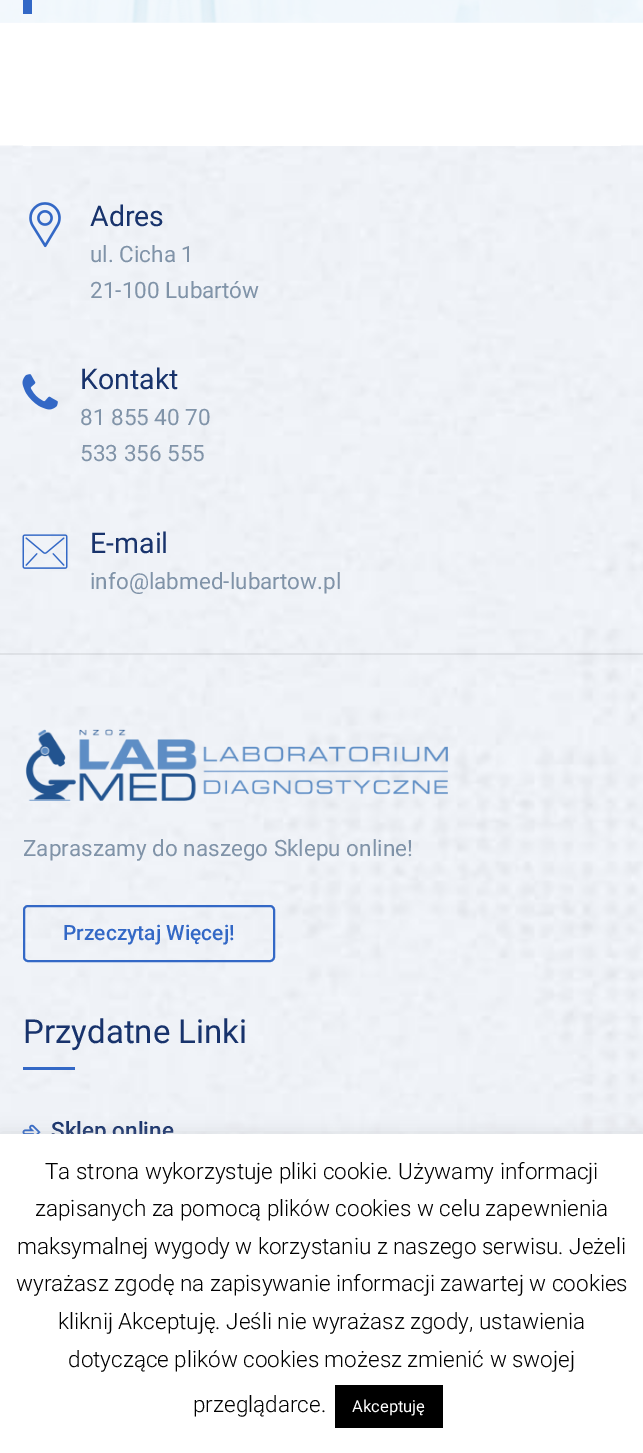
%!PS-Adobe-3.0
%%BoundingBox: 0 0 643 1453
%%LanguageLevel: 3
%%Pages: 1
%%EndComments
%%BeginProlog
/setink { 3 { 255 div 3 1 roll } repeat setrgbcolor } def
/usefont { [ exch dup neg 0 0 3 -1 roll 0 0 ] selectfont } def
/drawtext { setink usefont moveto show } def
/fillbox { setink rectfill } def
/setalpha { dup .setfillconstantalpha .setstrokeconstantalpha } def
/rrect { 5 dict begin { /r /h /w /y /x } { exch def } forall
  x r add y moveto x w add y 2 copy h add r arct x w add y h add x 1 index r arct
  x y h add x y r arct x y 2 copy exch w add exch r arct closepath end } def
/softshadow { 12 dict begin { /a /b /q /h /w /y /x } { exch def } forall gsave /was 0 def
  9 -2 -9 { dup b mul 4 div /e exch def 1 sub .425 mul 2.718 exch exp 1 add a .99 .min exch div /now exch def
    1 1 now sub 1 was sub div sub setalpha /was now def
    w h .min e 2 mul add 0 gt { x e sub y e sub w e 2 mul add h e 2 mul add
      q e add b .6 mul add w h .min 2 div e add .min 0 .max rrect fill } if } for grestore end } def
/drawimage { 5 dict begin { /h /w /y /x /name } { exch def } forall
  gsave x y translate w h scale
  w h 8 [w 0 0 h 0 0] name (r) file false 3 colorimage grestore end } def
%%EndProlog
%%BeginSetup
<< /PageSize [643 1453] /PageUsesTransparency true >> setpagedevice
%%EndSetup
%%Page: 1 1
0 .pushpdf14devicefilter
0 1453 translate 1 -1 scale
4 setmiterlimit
0 0 643 1453 255 255 255 fillbox
0 22 643 1 245 249 253 fillbox
(assets/img1.rgb) 0 0 643 23 drawimage
23 0 9 14 51 104 198 fillbox
(assets/img2.rgb) 0 145 643 989 drawimage
23 145 598 1 255 255 255 fillbox
0.07 setalpha
0 653 643 2 0 0 0 fillbox
1 setalpha
(assets/img3.rgb) 29 202 32 46 drawimage
(Adres) 90 226 /Roboto-Regular 28.5 24 51 108 drawtext
(ul. Cicha 1) 90 262 /Roboto-Regular 22.5 128 147 168 drawtext
(21-100 Lubartów) 90 298 /Roboto-Regular 22.5 128 147 168 drawtext
(assets/img4.rgb) 22 374 36 36 drawimage
(Kontakt) 80 389 /Roboto-Regular 28.5 24 51 108 drawtext
(81 855 40 70) 80 425 /Roboto-Regular 22.5 128 147 168 drawtext
(533 356 555) 80 461 /Roboto-Regular 22.5 128 147 168 drawtext
(assets/img5.rgb) 22 534 46 35 drawimage
(E-mail) 90 553 /Roboto-Regular 28.5 24 51 108 drawtext
(info@labmed-lubartow.pl) 90 589 /Roboto-Regular 22.5 128 147 168 drawtext
(assets/img6.rgb) 25 729 423 72 drawimage
(Zapraszamy do naszego Sklepu online!) 23 856 /Roboto-Regular 22.5 128 147 168 drawtext
51 104 198 setink
2 setlinewidth
24 906 250 55 4 rrect stroke
(Przeczytaj Więcej!) 63 940 /Roboto-Medium 21 51 104 198 drawtext
(Przydatne Linki) 23 1043 /Roboto-Regular 33 24 51 108 drawtext
23 1067 52 3 51 104 198 fillbox
(assets/img7.rgb) 22 1124 19 10 drawimage
(Sklep online) 51 1138 /Roboto-Medium 22.5 24 51 108 drawtext
172 171 171 setink
0 1133 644 319 0 7.5 0.3 softshadow
0 1134 643 319 255 255 255 fillbox
(Ta strona wykorzystuje pliki cookie. Używamy informacji) 45 1179 /Roboto-Light 22.5 0 0 0 drawtext
(zapisanych za pomocą plików cookies w celu zapewnienia) 35 1216 /Roboto-Light 22.5 0 0 0 drawtext
(maksymalnej wygody w korzystaniu z naszego serwisu. Jeżeli) 17 1254 /Roboto-Light 22.5 0 0 0 drawtext
(wyrażasz zgodę na zapisywanie informacji zawartej w cookies) 16 1291 /Roboto-Light 22.5 0 0 0 drawtext
(kliknij Akceptuję. Jeśli nie wyrażasz zgody, ustawienia) 58 1329 /Roboto-Light 22.5 0 0 0 drawtext
(dotyczące plików cookies możesz zmienić w swojej) 68 1367 /Roboto-Light 22.5 0 0 0 drawtext
(przeglądarce.) 193 1412 /Roboto-Light 22.5 0 0 0 drawtext
335 1385 108 43 0 0 0 fillbox
(Akceptuję) 352 1412 /Roboto-Regular 16.5 255 255 255 drawtext
.poppdf14devicefilter showpage
%%EOF
